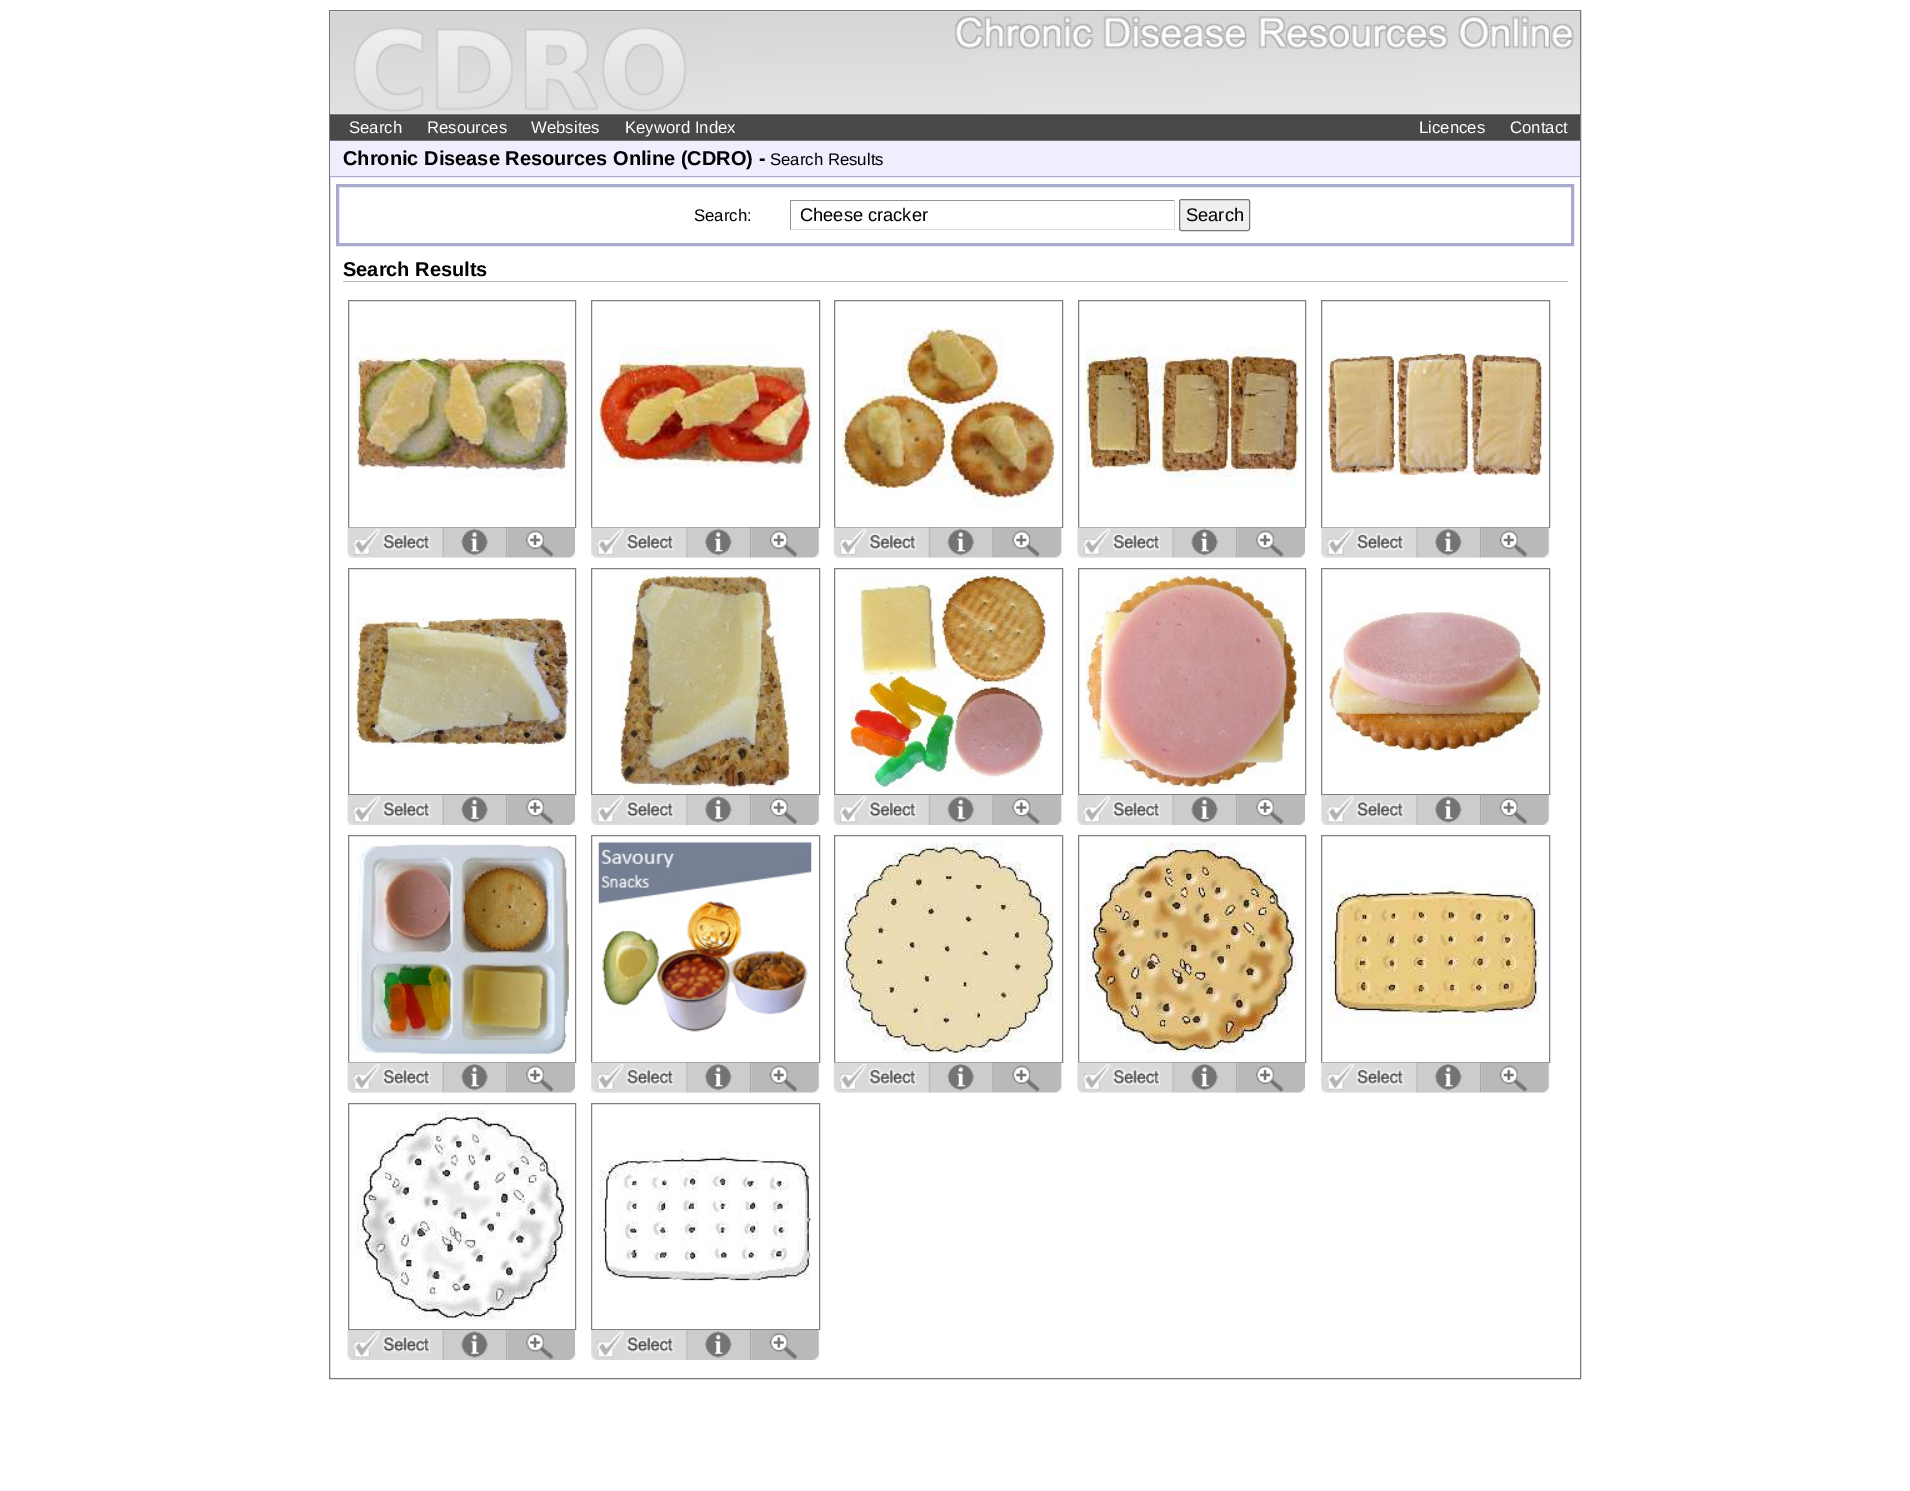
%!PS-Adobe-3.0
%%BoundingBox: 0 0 1910 1491
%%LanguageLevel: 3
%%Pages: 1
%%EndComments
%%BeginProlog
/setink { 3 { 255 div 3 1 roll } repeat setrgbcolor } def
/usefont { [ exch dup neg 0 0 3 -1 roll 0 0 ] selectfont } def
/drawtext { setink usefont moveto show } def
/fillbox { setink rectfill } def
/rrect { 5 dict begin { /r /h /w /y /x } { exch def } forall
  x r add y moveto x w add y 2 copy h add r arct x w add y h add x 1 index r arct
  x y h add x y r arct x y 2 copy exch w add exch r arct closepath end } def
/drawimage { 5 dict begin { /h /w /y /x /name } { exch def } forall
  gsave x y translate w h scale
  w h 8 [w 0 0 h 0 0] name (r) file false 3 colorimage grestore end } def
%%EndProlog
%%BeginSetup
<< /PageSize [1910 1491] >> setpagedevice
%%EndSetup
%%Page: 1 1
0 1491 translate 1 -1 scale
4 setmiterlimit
0 0 1910 1491 255 255 255 fillbox
118 118 118 setink
329.5 10.5 1251 1368 rectstroke
(assets/img1.rgb) 330 11 1250 103 drawimage
330 115 1250 25 73 73 73 fillbox
330 114 1250 1 118 118 118 fillbox
330 140 1250 1 118 118 118 fillbox
(Search) 349 133 /LiberationSans-Regular 16.75 255 255 255 drawtext
(Resources) 427 133 /LiberationSans-Regular 16.75 255 255 255 drawtext
(Websites) 531 133 /LiberationSans-Regular 16.75 255 255 255 drawtext
(Keyword Index) 625 133 /LiberationSans-Regular 16.75 255 255 255 drawtext
(Licences) 1419 133 /LiberationSans-Regular 16.75 255 255 255 drawtext
(Contact) 1510 133 /LiberationSans-Regular 16.75 255 255 255 drawtext
330 141 1250 37 238 238 255 fillbox
330 176 1250 1 170 170 204 fillbox
(Chronic Disease Resources Online \(CDRO\) -) 343 165 /LiberationSans-Bold 20 0 0 0 drawtext
(Search Results) 770 165 /LiberationSans-Regular 16.75 0 0 0 drawtext
170 170 204 setink
3 setlinewidth
337.5 185.5 1235 59 rectstroke
(Search:) 694 221 /LiberationSans-Regular 16.75 0 0 0 drawtext
790 200 385 1 147 147 147 fillbox
1174 200 1 30 221 221 221 fillbox
790 229 385 1 221 221 221 fillbox
790 200 1 30 147 147 147 fillbox
(Cheese cracker) 800 221 /LiberationSans-Regular 18.25 0 0 0 drawtext
239 239 239 setink
1179.5 199.5 70 31 2 rrect gsave fill grestore
118 118 118 setink
1 setlinewidth
stroke
(Search) 1186 221 /LiberationSans-Regular 18.25 0 0 0 drawtext
343 281 1225 1 187 187 187 fillbox
(Search Results) 343 276 /LiberationSans-Bold 20 0 0 0 drawtext
128 128 128 setink
348.5 300.5 227 227 rectstroke
(assets/img2.rgb) 356 347 213 131 drawimage
348 528 228 30 250 250 250 fillbox
(assets/img3.rgb) 347 527 161 31 drawimage
(assets/img4.rgb) 507 527 68 31 drawimage
128 128 128 setink
591.5 300.5 228 227 rectstroke
(assets/img5.rgb) 598 347 214 121 drawimage
591 528 229 30 250 250 250 fillbox
(assets/img6.rgb) 591 527 161 31 drawimage
(assets/img7.rgb) 751 527 68 31 drawimage
128 128 128 setink
834.5 300.5 228 227 rectstroke
(assets/img8.rgb) 842 326 213 182 drawimage
834 528 229 30 250 250 250 fillbox
(assets/img9.rgb) 833 527 161 31 drawimage
(assets/img10.rgb) 993 527 69 31 drawimage
128 128 128 setink
1078.5 300.5 227 227 rectstroke
(assets/img11.rgb) 1086 347 213 141 drawimage
1078 528 228 30 250 250 250 fillbox
(assets/img12.rgb) 1077 527 161 31 drawimage
(assets/img13.rgb) 1237 527 68 31 drawimage
128 128 128 setink
1321.5 300.5 228 227 rectstroke
(assets/img14.rgb) 1328 353 214 122 drawimage
1321 528 229 30 250 250 250 fillbox
(assets/img15.rgb) 1321 527 161 31 drawimage
(assets/img7.rgb) 1481 527 68 31 drawimage
128 128 128 setink
348.5 568.5 227 226 rectstroke
(assets/img16.rgb) 356 617 213 128 drawimage
348 795 228 30 250 250 250 fillbox
(assets/img17.rgb) 347 795 161 30 drawimage
(assets/img18.rgb) 507 795 68 30 drawimage
128 128 128 setink
591.5 568.5 228 226 rectstroke
(assets/img19.rgb) 620 575 170 213 drawimage
591 795 229 30 250 250 250 fillbox
(assets/img20.rgb) 591 795 161 30 drawimage
(assets/img21.rgb) 751 795 68 30 drawimage
128 128 128 setink
834.5 568.5 228 226 rectstroke
(assets/img22.rgb) 850 575 197 213 drawimage
834 795 229 30 250 250 250 fillbox
(assets/img23.rgb) 833 795 161 30 drawimage
(assets/img24.rgb) 994 795 68 30 drawimage
128 128 128 setink
1078.5 568.5 227 226 rectstroke
(assets/img25.rgb) 1086 575 212 213 drawimage
1078 795 228 30 250 250 250 fillbox
(assets/img26.rgb) 1077 795 161 30 drawimage
(assets/img27.rgb) 1237 795 68 30 drawimage
128 128 128 setink
1321.5 568.5 228 226 rectstroke
(assets/img28.rgb) 1328 611 214 141 drawimage
1321 795 229 30 250 250 250 fillbox
(assets/img29.rgb) 1321 795 161 30 drawimage
(assets/img21.rgb) 1481 795 68 30 drawimage
128 128 128 setink
348.5 835.5 227 227 rectstroke
(assets/img30.rgb) 356 844 213 211 drawimage
348 1063 228 30 250 250 250 fillbox
(assets/img3.rgb) 347 1062 161 31 drawimage
(assets/img4.rgb) 507 1062 68 31 drawimage
128 128 128 setink
591.5 835.5 228 227 rectstroke
(assets/img31.rgb) 598 842 214 190 drawimage
591 1063 229 30 250 250 250 fillbox
(assets/img6.rgb) 591 1062 161 31 drawimage
(assets/img7.rgb) 751 1062 68 31 drawimage
128 128 128 setink
834.5 835.5 228 227 rectstroke
(assets/img32.rgb) 842 842 213 213 drawimage
834 1063 229 30 250 250 250 fillbox
(assets/img9.rgb) 833 1062 161 31 drawimage
(assets/img10.rgb) 993 1062 69 31 drawimage
128 128 128 setink
1078.5 835.5 227 227 rectstroke
(assets/img33.rgb) 1086 842 213 213 drawimage
1078 1063 228 30 250 250 250 fillbox
(assets/img12.rgb) 1077 1062 161 31 drawimage
(assets/img13.rgb) 1237 1062 68 31 drawimage
128 128 128 setink
1321.5 835.5 228 227 rectstroke
(assets/img34.rgb) 1328 882 213 141 drawimage
1321 1063 229 30 250 250 250 fillbox
(assets/img15.rgb) 1321 1062 161 31 drawimage
(assets/img7.rgb) 1481 1062 68 31 drawimage
128 128 128 setink
348.5 1103.5 227 226 rectstroke
(assets/img35.rgb) 356 1110 211 210 drawimage
348 1330 228 30 250 250 250 fillbox
(assets/img17.rgb) 347 1330 161 30 drawimage
(assets/img18.rgb) 507 1330 68 30 drawimage
128 128 128 setink
591.5 1103.5 228 226 rectstroke
(assets/img36.rgb) 598 1150 214 131 drawimage
591 1330 229 30 250 250 250 fillbox
(assets/img20.rgb) 591 1330 161 30 drawimage
(assets/img21.rgb) 751 1330 68 30 drawimage
showpage
%%EOF
